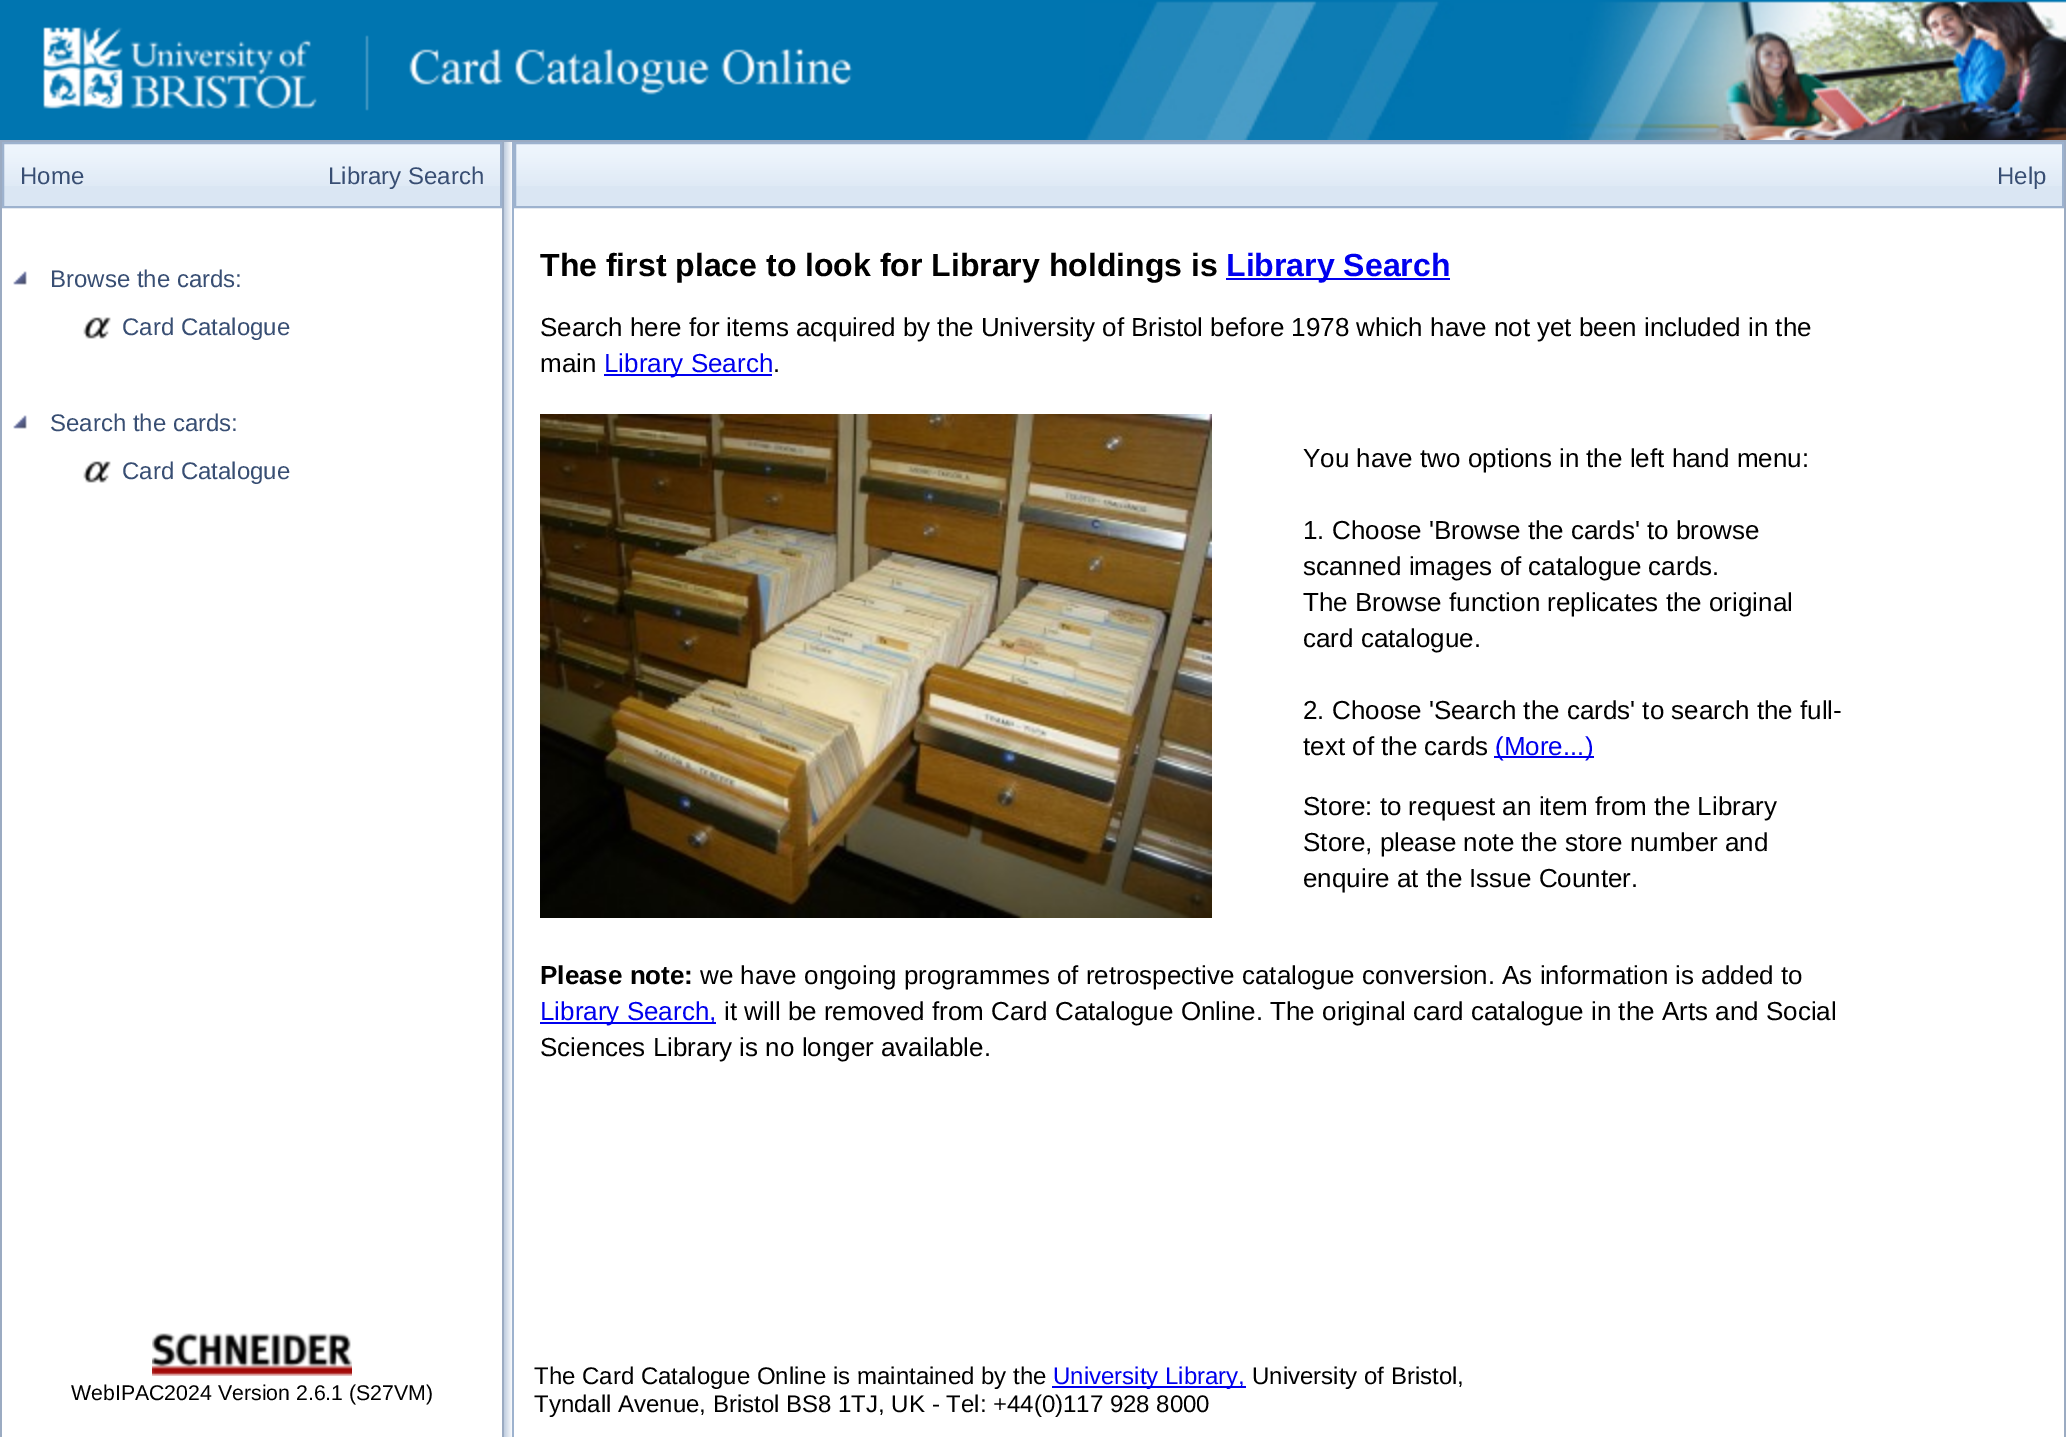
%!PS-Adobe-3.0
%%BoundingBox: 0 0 2066 1437
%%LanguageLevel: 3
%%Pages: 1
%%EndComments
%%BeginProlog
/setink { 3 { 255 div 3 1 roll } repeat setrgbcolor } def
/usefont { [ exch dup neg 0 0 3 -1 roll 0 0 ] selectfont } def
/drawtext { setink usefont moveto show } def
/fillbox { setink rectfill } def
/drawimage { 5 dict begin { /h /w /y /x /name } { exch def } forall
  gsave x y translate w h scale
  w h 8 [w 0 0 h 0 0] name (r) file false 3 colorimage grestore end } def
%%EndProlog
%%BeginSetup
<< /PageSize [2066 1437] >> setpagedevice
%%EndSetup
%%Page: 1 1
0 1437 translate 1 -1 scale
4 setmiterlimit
0 0 2066 1437 255 255 255 fillbox
0 0 2066 140 0 117 176 fillbox
(assets/img1.rgb) 43 27 326 84 drawimage
(assets/img2.rgb) 409 47 444 48 drawimage
(assets/img3.rgb) 1085 1 981 139 drawimage
0 140 2066 2 155 171 194 fillbox
0 140 2 1297 155 171 194 fillbox
502 142 2 1295 155 171 194 fillbox
4 186 496 20 218 230 243 fillbox
(assets/img4.rgb) 4 144 496 42 drawimage
157 178 206 setink
2 setlinewidth
3 143 498 64 rectstroke
(Home) 20 184 /LiberationSans-Regular 24 56 78 115 drawtext
(Library Search) 328 184 /LiberationSans-Regular 24 56 78 115 drawtext
(assets/img5.rgb) 13 271 14 14 drawimage
(Browse the cards:) 50 287 /LiberationSans-Regular 24 56 78 115 drawtext
(assets/img6.rgb) 83 317 28 22 drawimage
(Card Catalogue) 122 335 /LiberationSans-Regular 24 56 78 115 drawtext
(assets/img5.rgb) 13 415 14 14 drawimage
(Search the cards:) 50 431 /LiberationSans-Regular 24 56 78 115 drawtext
(assets/img6.rgb) 83 461 28 22 drawimage
(Card Catalogue) 122 479 /LiberationSans-Regular 24 56 78 115 drawtext
(assets/img7.rgb) 152 1333 200 43 drawimage
(WebIPAC2024 Version 2.6.1 \(S27VM\)) 71 1400 /LiberationSans-Regular 21.3 0 0 0 drawtext
gsave 504 142 moveto 512 142 lineto 512 1437 lineto 504 1437 lineto closepath clip newpath
<< /ShadingType 2 /ColorSpace /DeviceRGB /Coords [512 791 504 791] /Extend [true true] /Function << /FunctionType 2 /Domain [0 1] /C0 [0.98 0.984 0.992] /C1 [0.749 0.804 0.875] /N 1 >> >> shfill grestore
512 142 2 1295 157 178 206 fillbox
2064 142 2 1295 155 171 194 fillbox
516 186 1546 20 218 230 243 fillbox
(assets/img8.rgb) 516 144 1546 42 drawimage
157 178 206 setink
515 143 1548 64 rectstroke
(Help) 1997 184 /LiberationSans-Regular 24 56 78 115 drawtext
(The first place to look for Library holdings is) 540 276 /LiberationSans-Bold 32 0 0 0 drawtext
1226 278 224 2 0 0 238 fillbox
(Library Search) 1226 276 /LiberationSans-Bold 32 0 0 238 drawtext
(Search here for items acquired by the University of Bristol before 1978 which have not yet been included in the) 540 336 /LiberationSans-Regular 26 0 0 0 drawtext
(main) 540 372 /LiberationSans-Regular 26 0 0 0 drawtext
604 374 168 2 0 0 238 fillbox
(Library Search) 604 372 /LiberationSans-Regular 26 0 0 238 drawtext
(.) 773 372 /LiberationSans-Regular 26 0 0 0 drawtext
(assets/img9.rgb) 540 414 672 504 drawimage
(You have two options in the left hand menu:) 1303 467 /LiberationSans-Regular 26 0 0 0 drawtext
(1. Choose 'Browse the cards' to browse) 1303 539 /LiberationSans-Regular 26 0 0 0 drawtext
(scanned images of catalogue cards.) 1303 575 /LiberationSans-Regular 26 0 0 0 drawtext
(The Browse function replicates the original) 1303 611 /LiberationSans-Regular 26 0 0 0 drawtext
(card catalogue.) 1303 647 /LiberationSans-Regular 26 0 0 0 drawtext
(2. Choose 'Search the cards' to search the full-) 1303 719 /LiberationSans-Regular 26 0 0 0 drawtext
(text of the cards) 1303 755 /LiberationSans-Regular 26 0 0 0 drawtext
1494 756 100 2 0 0 238 fillbox
(\(More...\)) 1495 755 /LiberationSans-Regular 26 0 0 238 drawtext
(Store: to request an item from the Library) 1303 815 /LiberationSans-Regular 26 0 0 0 drawtext
(Store, please note the store number and) 1303 851 /LiberationSans-Regular 26 0 0 0 drawtext
(enquire at the Issue Counter.) 1303 887 /LiberationSans-Regular 26 0 0 0 drawtext
(Please note:) 540 984 /LiberationSans-Bold 26 0 0 0 drawtext
(we have ongoing programmes of retrospective catalogue conversion. As information is added to) 700 984 /LiberationSans-Regular 26 0 0 0 drawtext
540 1022 176 2 0 0 238 fillbox
(Library Search,) 540 1020 /LiberationSans-Regular 26 0 0 238 drawtext
(it will be removed from Card Catalogue Online. The original card catalogue in the Arts and Social) 724 1020 /LiberationSans-Regular 26 0 0 0 drawtext
(Sciences Library is no longer available.) 540 1056 /LiberationSans-Regular 26 0 0 0 drawtext
(The Card Catalogue Online is maintained by the) 534 1384 /LiberationSans-Regular 24 0 0 0 drawtext
1052 1386 194 2 0 0 238 fillbox
(University Library,) 1053 1384 /LiberationSans-Regular 24 0 0 238 drawtext
(University of Bristol,) 1252 1384 /LiberationSans-Regular 24 0 0 0 drawtext
(Tyndall Avenue, Bristol BS8 1TJ, UK - Tel: +44\(0\)117 928 8000) 534 1412 /LiberationSans-Regular 24 0 0 0 drawtext
showpage
%%EOF
